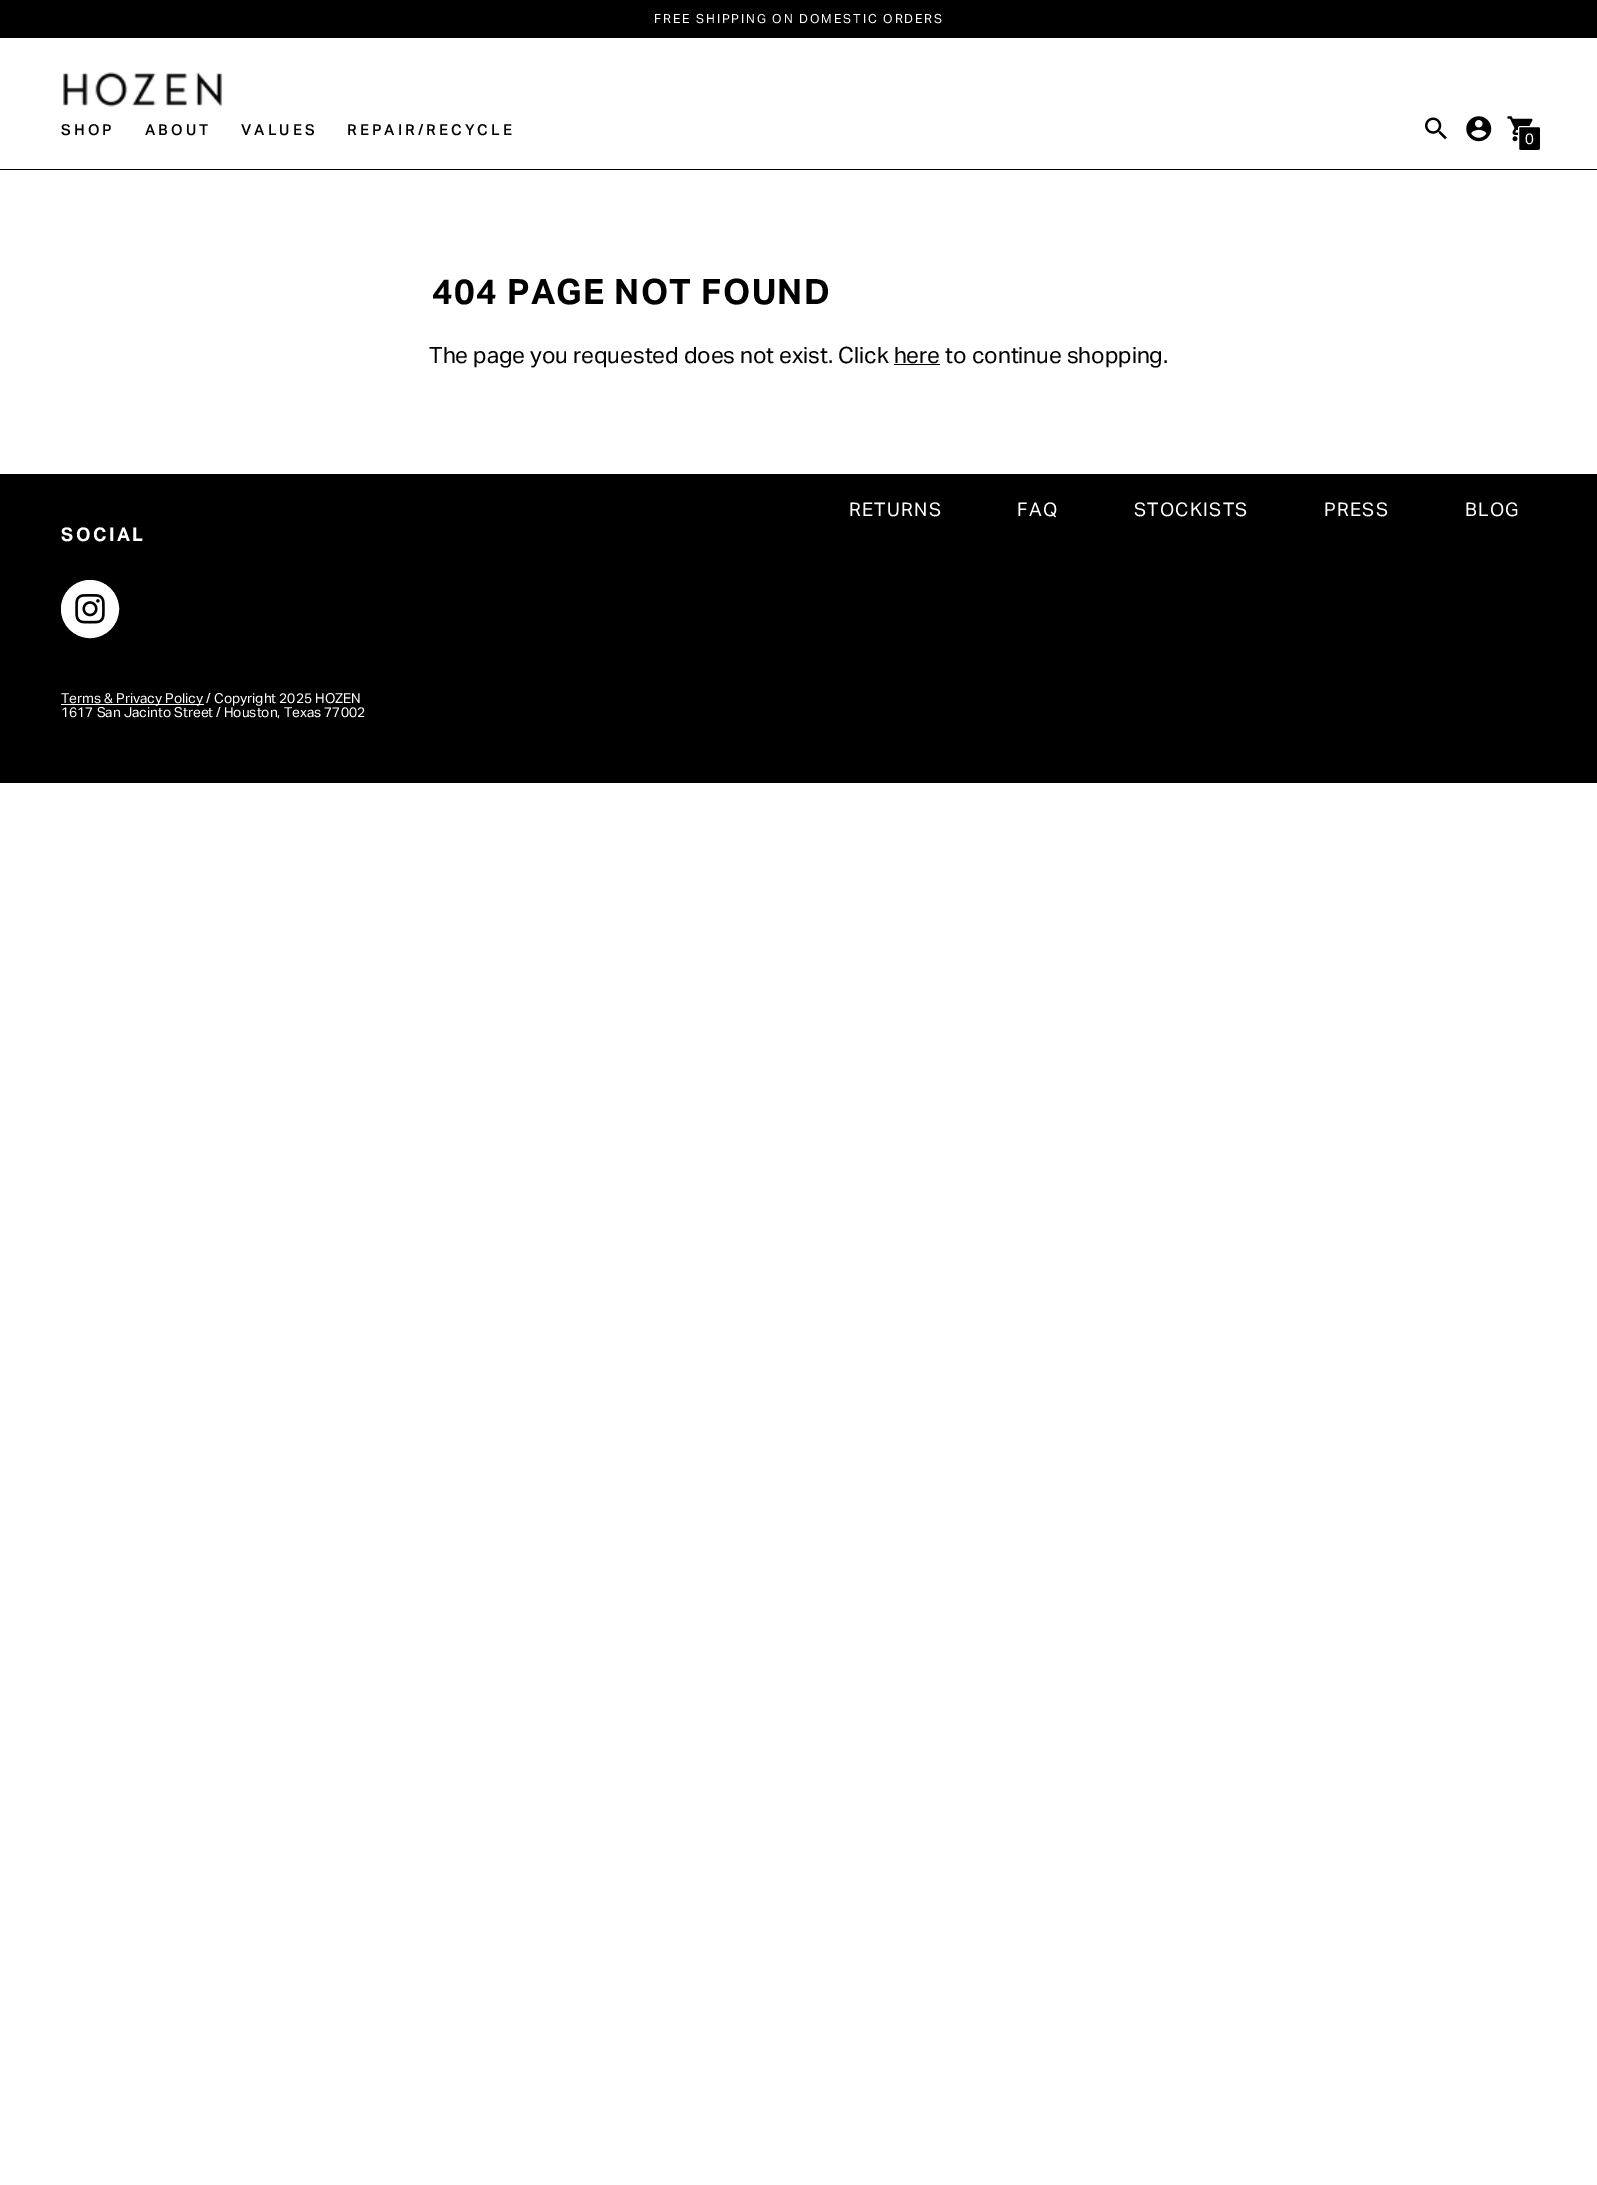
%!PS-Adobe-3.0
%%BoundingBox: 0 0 1597 2185
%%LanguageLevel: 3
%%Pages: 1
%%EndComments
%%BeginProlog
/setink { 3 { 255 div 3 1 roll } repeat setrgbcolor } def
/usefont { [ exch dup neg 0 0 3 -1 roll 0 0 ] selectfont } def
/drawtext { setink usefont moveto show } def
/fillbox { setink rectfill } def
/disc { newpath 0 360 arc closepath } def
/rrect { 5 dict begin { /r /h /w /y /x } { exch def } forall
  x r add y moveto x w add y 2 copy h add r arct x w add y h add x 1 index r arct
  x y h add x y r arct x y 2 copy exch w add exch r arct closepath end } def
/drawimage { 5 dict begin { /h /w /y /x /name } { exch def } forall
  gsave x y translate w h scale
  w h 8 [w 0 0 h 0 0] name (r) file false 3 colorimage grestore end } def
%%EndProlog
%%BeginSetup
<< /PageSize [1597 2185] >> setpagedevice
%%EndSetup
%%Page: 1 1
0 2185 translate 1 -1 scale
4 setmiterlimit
0 0 1597 2185 255 255 255 fillbox
0 0 1597 38 0 0 0 fillbox
/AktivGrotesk-Regular 12.5 usefont
255 255 255 setink
654 23 moveto 1.9 0 (FREE SHIPPING ON DOMESTIC ORDERS) ashow
0 169 1597 1 0 0 0 fillbox
(assets/img1.rgb) 63 72 160 35 drawimage
/AktivGrotesk-Medium 15 usefont
61 135 moveto 3.1 0 (SHOP) ashow
145 135 moveto 3.1 0 (ABOUT) ashow
241 135 moveto 3.1 0 (VALUES) ashow
347 135 moveto 3.1 0 (REPAIR/RECYCLE) ashow
(assets/img2.rgb) 1425 117 22 23 drawimage
(assets/img3.rgb) 1466 116 26 26 drawimage
(assets/img4.rgb) 1507 116 26 26 drawimage
1518.5 126.5 22 24 2 rrect gsave fill grestore
255 255 255 setink
stroke
(0) 1525 144 /AktivGrotesk-Regular 15 255 255 255 drawtext
/AktivGrotesk-Bold 35 usefont
0 0 0 setink
432 304 moveto 1.25 0 (404 PAGE NOT FOUND) ashow
(The page you requested does not exist. Click here to continue shopping.) 429 363 /AktivGrotesk-Regular 22.5 0 0 0 drawtext
894 364 46 1 0 0 0 fillbox
0 474 1597 309 0 0 0 fillbox
/AktivGrotesk-Regular 18.75 usefont
255 255 255 setink
849 516 moveto 1.25 0 (RETURNS) ashow
1017 516 moveto 1.25 0 (FAQ) ashow
1134 516 moveto 1.25 0 (STOCKISTS) ashow
1324 516 moveto 1.25 0 (PRESS) ashow
1465 516 moveto 1.25 0 (BLOG) ashow
/AktivGrotesk-Bold 18.75 usefont
61 541 moveto 2.5 0 (SOCIAL) ashow
90 609 28.5 disc gsave fill grestore
stroke
(assets/img5.rgb) 75 594 30 30 drawimage
61 704 143 1 255 255 255 fillbox
(Terms & Privacy Policy / Copyright 2025 HOZEN) 61 703 /AktivGrotesk-Regular 13.75 255 255 255 drawtext
(1617 San Jacinto Street / Houston, Texas 77002) 61 717 /AktivGrotesk-Regular 13.75 255 255 255 drawtext
showpage
%%EOF
